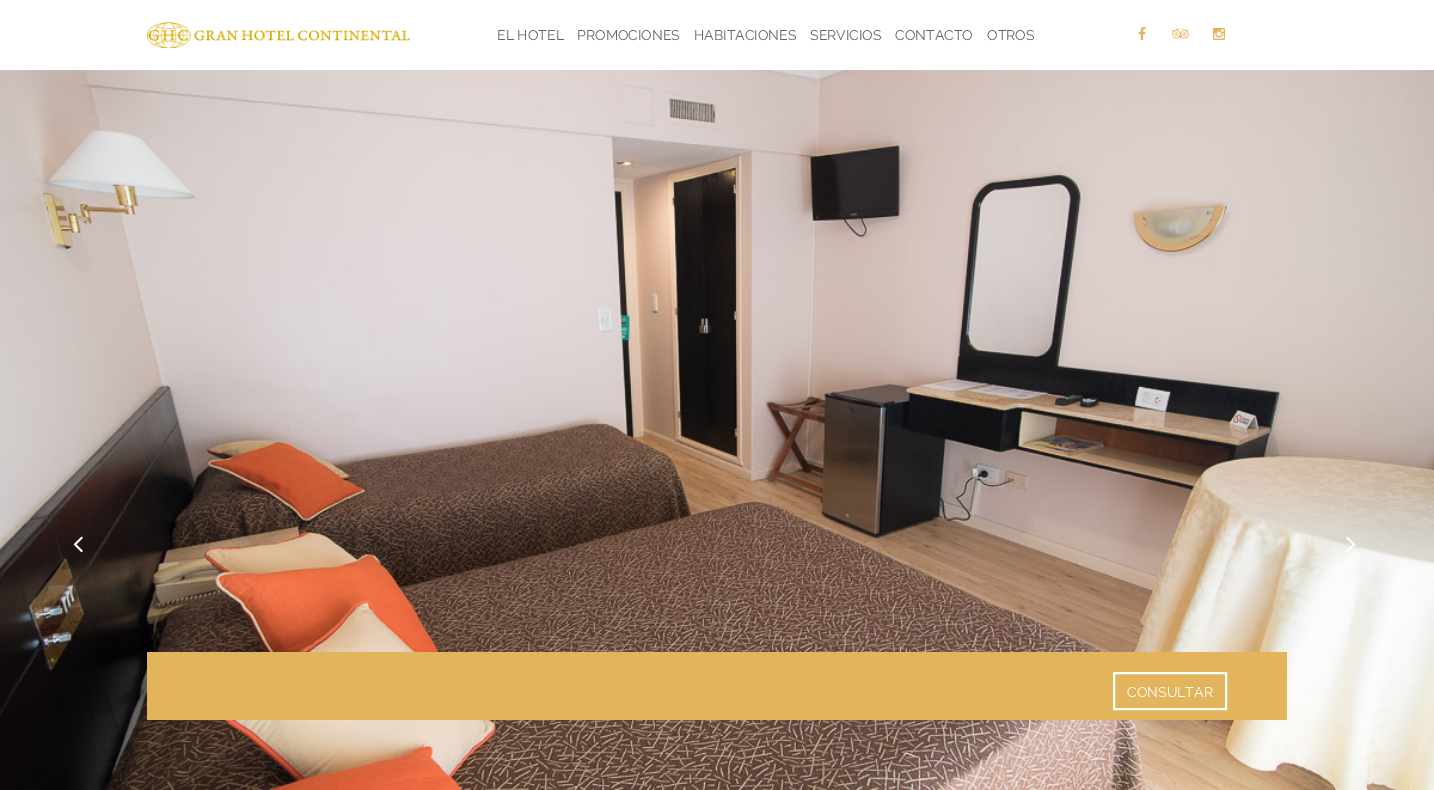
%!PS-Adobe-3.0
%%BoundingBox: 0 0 1434 790
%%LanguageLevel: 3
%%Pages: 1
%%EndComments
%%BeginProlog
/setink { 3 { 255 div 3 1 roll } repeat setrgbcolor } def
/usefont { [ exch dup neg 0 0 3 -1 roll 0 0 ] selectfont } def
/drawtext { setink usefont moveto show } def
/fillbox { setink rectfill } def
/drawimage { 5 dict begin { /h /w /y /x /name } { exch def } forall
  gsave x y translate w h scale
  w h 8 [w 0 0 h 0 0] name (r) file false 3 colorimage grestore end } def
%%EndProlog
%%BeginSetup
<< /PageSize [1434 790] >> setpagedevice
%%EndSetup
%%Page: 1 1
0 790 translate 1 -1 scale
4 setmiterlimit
0 0 1434 790 255 255 255 fillbox
(assets/img1.rgb) 147 22 263 26 drawimage
(EL HOTEL) 497 40 /Raleway-Regular 14 101 101 101 drawtext
(PROMOCIONES) 577 40 /Raleway-Regular 14 101 101 101 drawtext
(HABITACIONES) 694 40 /Raleway-Regular 14 101 101 101 drawtext
(SERVICIOS) 810 40 /Raleway-Regular 14 101 101 101 drawtext
(CONTACTO) 895 40 /Raleway-Regular 14 101 101 101 drawtext
(OTROS) 987 40 /Raleway-Regular 14 101 101 101 drawtext
(assets/img2.rgb) 1138 27 8 13 drawimage
(assets/img3.rgb) 1172 28 17 11 drawimage
(assets/img4.rgb) 1213 28 12 12 drawimage
(assets/img5.rgb) 0 70 1434 720 drawimage
(assets/img6.rgb) 73 536 10 17 drawimage
(assets/img7.rgb) 1346 536 10 16 drawimage
147 652 1140 68 226 181 93 fillbox
255 255 255 setink
2 setlinewidth
1114 673 112 36 rectstroke
(CONSULTAR) 1127 697 /Raleway-Regular 14 255 255 255 drawtext
showpage
%%EOF
